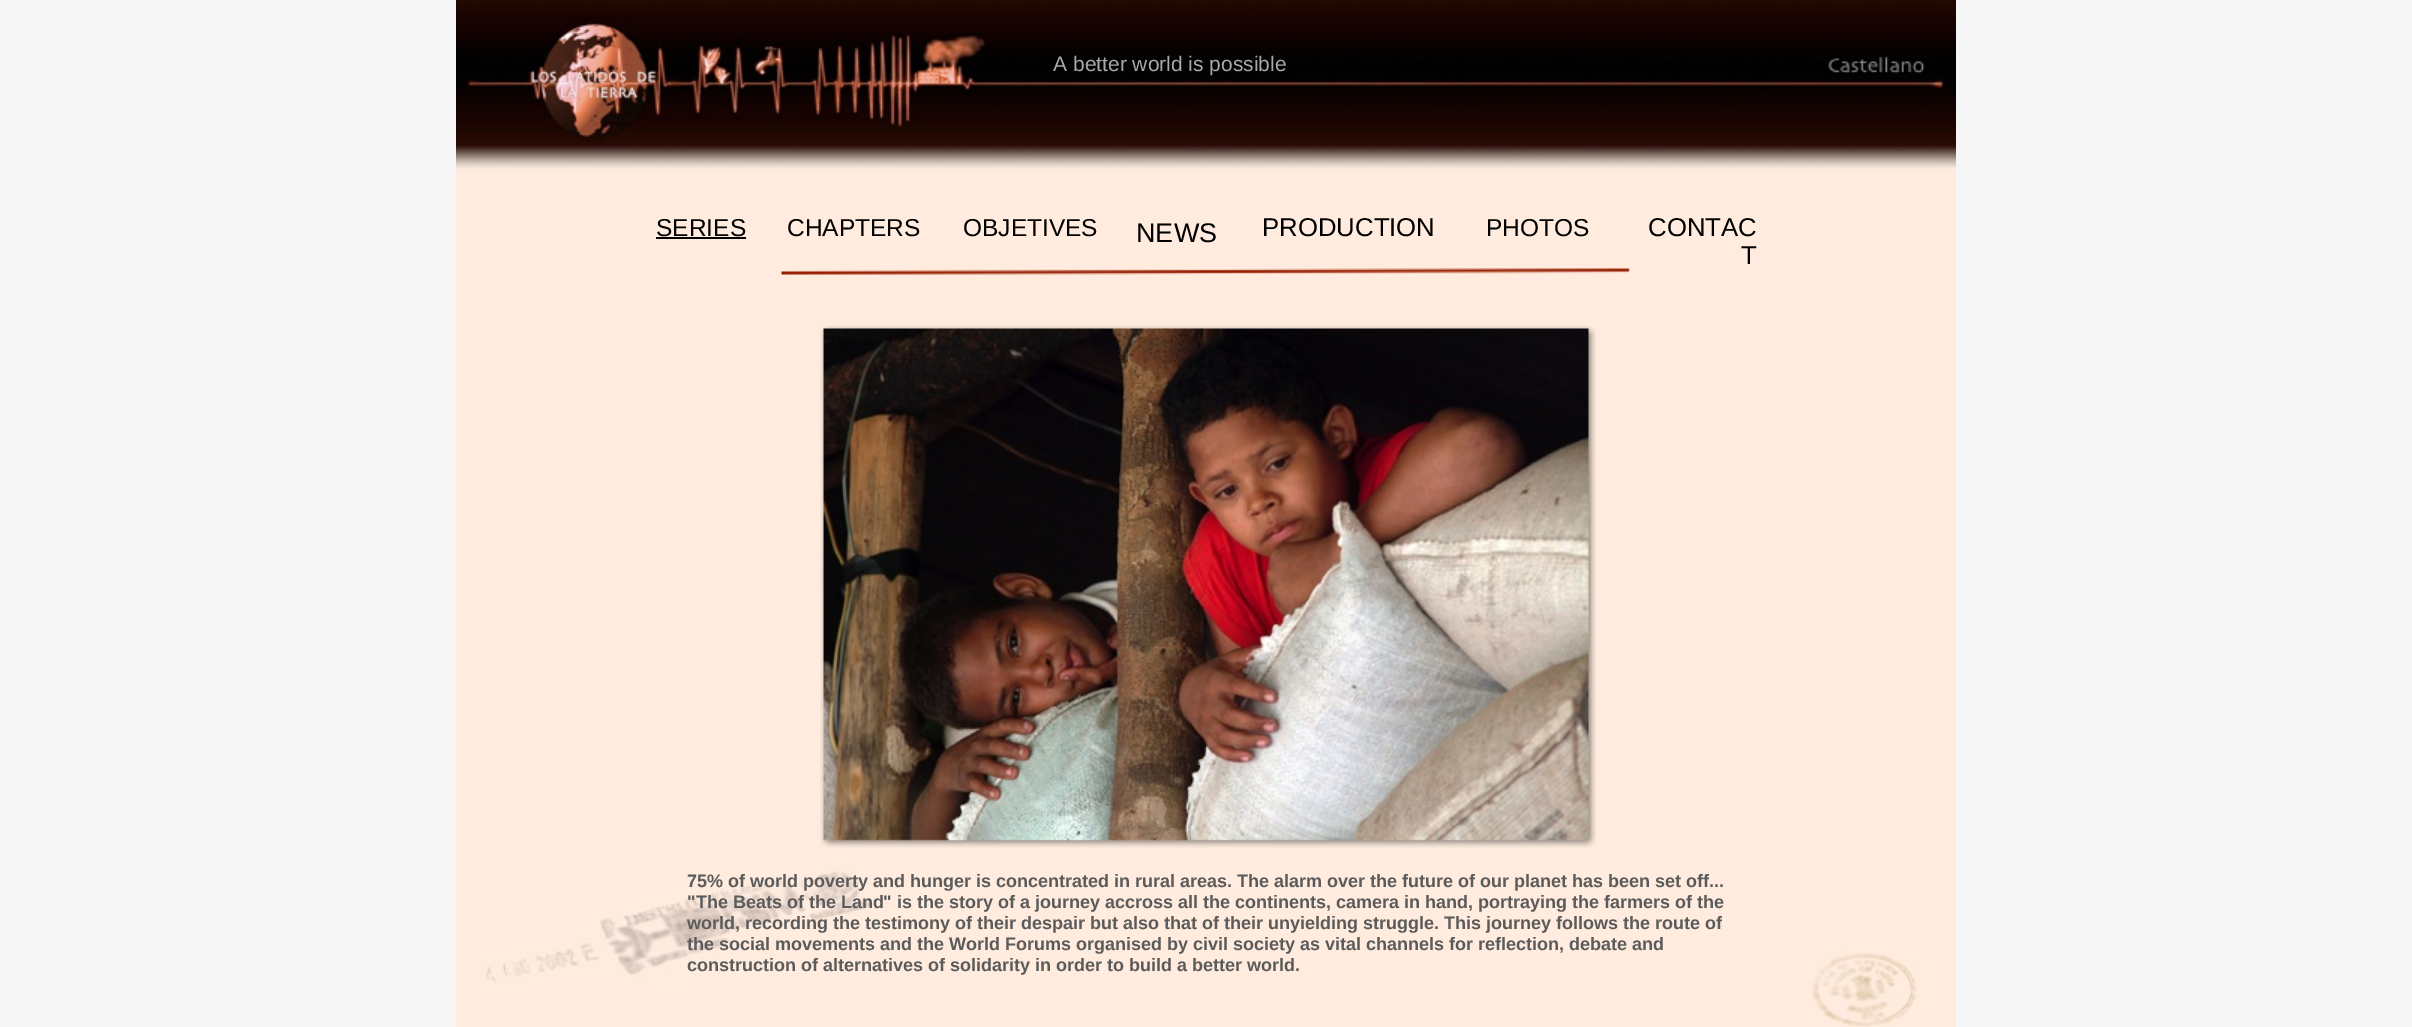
%!PS-Adobe-3.0
%%BoundingBox: 0 0 2412 1027
%%LanguageLevel: 3
%%Pages: 1
%%EndComments
%%BeginProlog
/setink { 3 { 255 div 3 1 roll } repeat setrgbcolor } def
/usefont { [ exch dup neg 0 0 3 -1 roll 0 0 ] selectfont } def
/drawtext { setink usefont moveto show } def
/fillbox { setink rectfill } def
/drawimage { 5 dict begin { /h /w /y /x /name } { exch def } forall
  gsave x y translate w h scale
  w h 8 [w 0 0 h 0 0] name (r) file false 3 colorimage grestore end } def
%%EndProlog
%%BeginSetup
<< /PageSize [2412 1027] >> setpagedevice
%%EndSetup
%%Page: 1 1
0 1027 translate 1 -1 scale
4 setmiterlimit
0 0 2412 1027 247 246 246 fillbox
(assets/img1.rgb) 456 169 1500 858 drawimage
(assets/img3.rgb) 456 0 1500 169 drawimage
(A better world is possible) 1053 71 /LiberationSans-Regular 21 169 169 169 drawtext
(assets/img2.rgb) 1828 56 97 18 drawimage
(SERIES) 656 236 /LiberationSans-Regular 24.5 0 0 0 drawtext
656 237 90 2 0 0 0 fillbox
(CHAPTERS) 787 236 /LiberationSans-Regular 24.5 0 0 0 drawtext
(OBJETIVES) 963 236 /LiberationSans-Regular 24.5 0 0 0 drawtext
(NEWS) 1136 242 /LiberationSans-Regular 27 0 0 0 drawtext
(PRODUCTION) 1262 236 /LiberationSans-Regular 25.75 0 0 0 drawtext
(PHOTOS) 1486 236 /LiberationSans-Regular 24.5 0 0 0 drawtext
(CONTAC) 1648 236 /LiberationSans-Regular 25.75 0 0 0 drawtext
(T) 1741 264 /LiberationSans-Regular 25.75 0 0 0 drawtext
(assets/img4.rgb) 781 268 849 7 drawimage
(assets/img5.rgb) 820 325 776 523 drawimage
(75% of world poverty and hunger is concentrated in rural areas. The alarm over the future of our planet has been set off...) 687 887 /LiberationSans-Bold 18 91 91 91 drawtext
("The Beats of the Land" is the story of a journey accross all the continents, camera in hand, portraying the farmers of the) 687 908 /LiberationSans-Bold 18 91 91 91 drawtext
(world, recording the testimony of their despair but also that of their unyielding struggle. This journey follows the route of) 687 929 /LiberationSans-Bold 18 91 91 91 drawtext
(the social movements and the World Forums organised by civil society as vital channels for reflection, debate and) 687 950 /LiberationSans-Bold 18 91 91 91 drawtext
(construction of alternatives of solidarity in order to build a better world.) 687 971 /LiberationSans-Bold 18 91 91 91 drawtext
showpage
%%EOF
